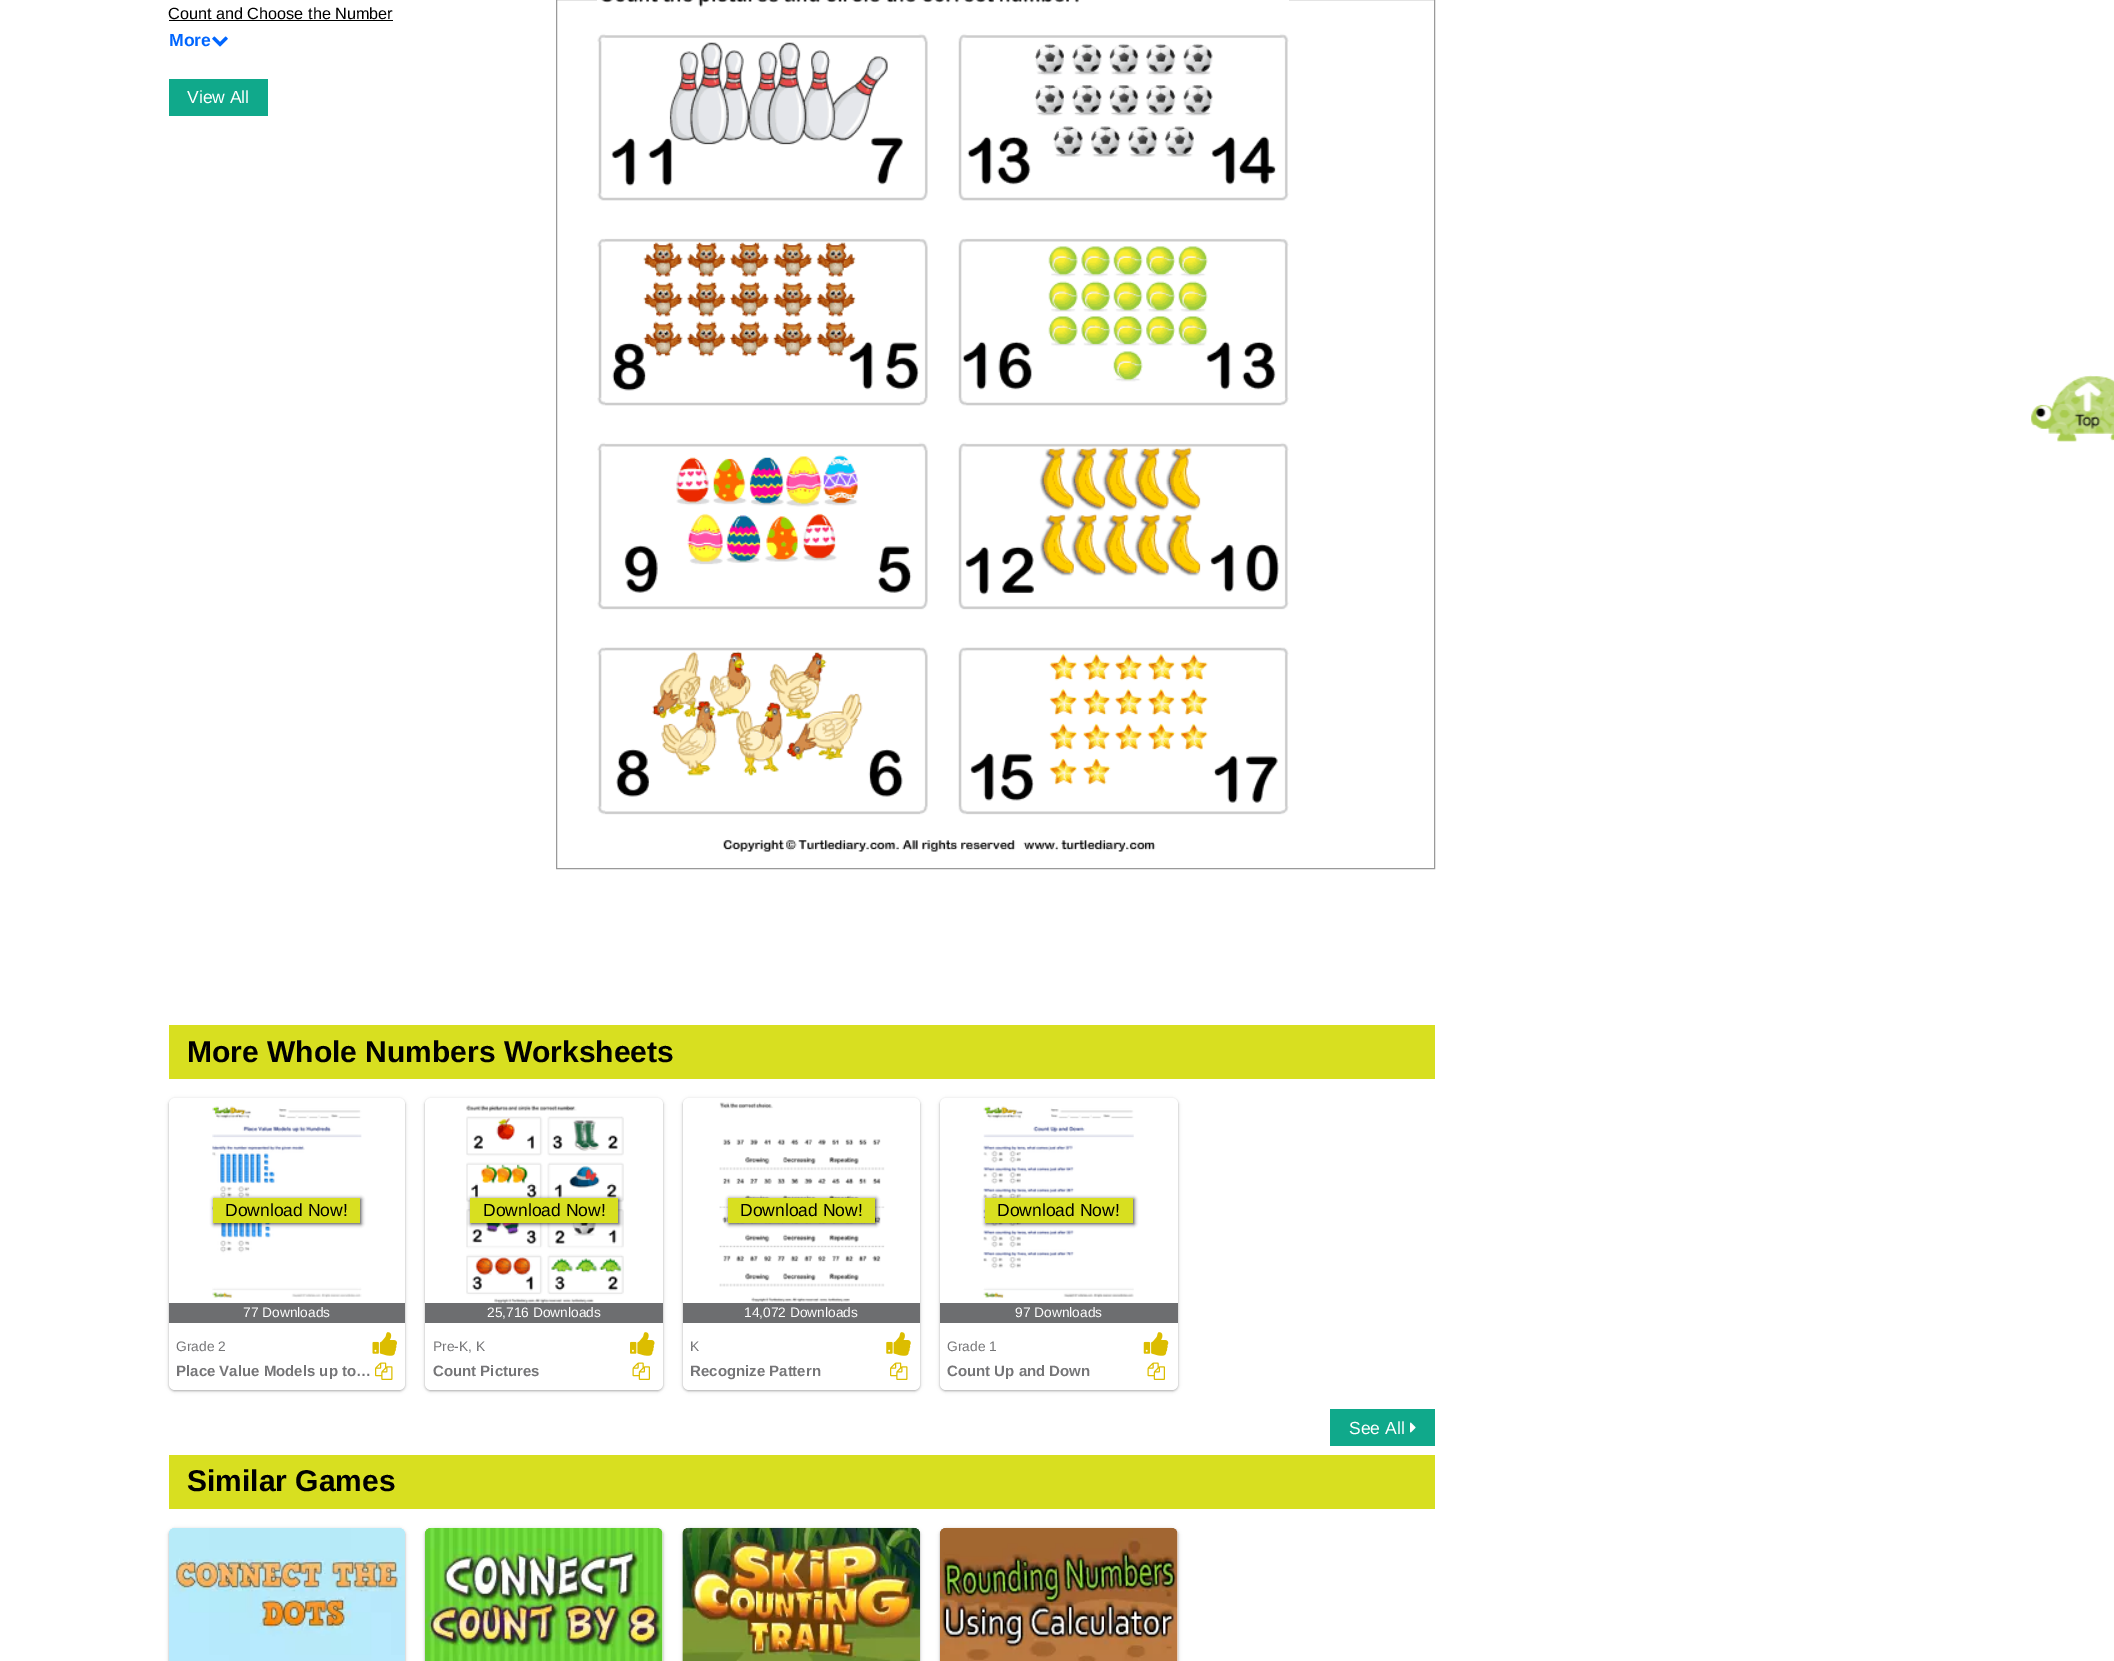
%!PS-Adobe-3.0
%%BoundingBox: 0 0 2114 1661
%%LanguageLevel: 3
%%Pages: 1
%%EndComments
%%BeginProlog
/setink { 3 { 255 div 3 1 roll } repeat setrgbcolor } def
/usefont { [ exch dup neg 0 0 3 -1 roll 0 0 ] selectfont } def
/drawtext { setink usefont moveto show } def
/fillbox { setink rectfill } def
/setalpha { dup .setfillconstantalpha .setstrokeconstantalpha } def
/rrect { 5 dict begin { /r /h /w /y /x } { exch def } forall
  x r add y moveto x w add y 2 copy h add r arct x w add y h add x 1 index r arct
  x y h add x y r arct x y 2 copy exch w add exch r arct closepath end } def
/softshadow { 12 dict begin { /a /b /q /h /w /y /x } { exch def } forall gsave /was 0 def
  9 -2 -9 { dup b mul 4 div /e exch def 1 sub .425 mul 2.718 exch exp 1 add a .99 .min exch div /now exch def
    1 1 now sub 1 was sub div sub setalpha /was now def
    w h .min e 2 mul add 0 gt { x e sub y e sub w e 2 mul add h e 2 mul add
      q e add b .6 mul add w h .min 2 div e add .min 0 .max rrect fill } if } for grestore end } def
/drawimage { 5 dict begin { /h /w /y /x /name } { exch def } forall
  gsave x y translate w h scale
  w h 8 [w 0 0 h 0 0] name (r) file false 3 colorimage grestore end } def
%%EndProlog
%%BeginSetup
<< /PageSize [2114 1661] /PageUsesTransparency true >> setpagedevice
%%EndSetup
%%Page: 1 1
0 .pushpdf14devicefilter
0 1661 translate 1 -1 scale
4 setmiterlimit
0 0 2114 1661 255 255 255 fillbox
(Count and Choose the Number) 168 19 /LiberationSans-Regular 16.25 0 0 0 drawtext
169 20 224 1 0 0 0 fillbox
(More) 169 46 /LiberationSans-Bold 17.5 0 102 255 drawtext
(assets/img1.rgb) 212 36 16 11 drawimage
169 79 99 37 16 169 139 fillbox
(View All) 187 103 /LiberationSans-Regular 17.5 255 255 255 drawtext
153 153 153 setink
556.5 -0.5 878 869 rectstroke
(assets/img2.rgb) 597 0 692 852 drawimage
169 1025 1266 54 216 223 32 fillbox
(More Whole Numbers Worksheets) 187 1062 /LiberationSans-Bold 30 0 0 0 drawtext
169 1099 236 292 6 1 0.24 softshadow
169 1099 236 292 6 2 0.12 softshadow
255 255 255 setink
169 1098 236 292 6 rrect fill
(assets/img3.rgb) 212 1106 150 192 drawimage
(assets/img4.rgb) 212 1108 150 190 drawimage
0 0 0 setink
214 1199 147 25 0 2 0.75 softshadow
213 1198 147 25 216 223 32 fillbox
(Download Now!) 225 1216 /LiberationSans-Regular 17.5 0 0 0 drawtext
169 1303 236 20 109 110 112 fillbox
(77 Downloads) 243 1317 /LiberationSans-Regular 13.75 255 255 255 drawtext
(Grade 2) 176 1351 /LiberationSans-Regular 13.75 117 117 119 drawtext
(assets/img5.rgb) 372 1332 25 24 drawimage
(Place Value Models up to…) 176 1376 /LiberationSans-Bold 15 117 117 119 drawtext
(assets/img6.rgb) 375 1362 18 18 drawimage
0 0 0 setink
425 1099 238 292 6 1 0.24 softshadow
425 1099 238 292 6 2 0.12 softshadow
255 255 255 setink
425 1098 238 292 6 rrect fill
(assets/img7.rgb) 466 1105 158 198 drawimage
0 0 0 setink
471 1199 148 25 0 2 0.75 softshadow
470 1198 148 25 216 223 32 fillbox
(Download Now!) 483 1216 /LiberationSans-Regular 17.5 0 0 0 drawtext
(assets/img8.rgb) 498 1302 88 1 drawimage
425 1303 238 20 109 110 112 fillbox
(25,716 Downloads) 487 1317 /LiberationSans-Regular 13.75 255 255 255 drawtext
(Pre-K, K) 433 1351 /LiberationSans-Regular 13.75 117 117 119 drawtext
(assets/img9.rgb) 630 1332 25 24 drawimage
(Count Pictures) 433 1376 /LiberationSans-Bold 15 117 117 119 drawtext
(assets/img10.rgb) 632 1362 18 18 drawimage
0 0 0 setink
683 1099 237 292 6 1 0.24 softshadow
683 1099 237 292 6 2 0.12 softshadow
255 255 255 setink
683 1098 237 292 6 rrect fill
(assets/img11.rgb) 719 1102 166 200 drawimage
0 0 0 setink
729 1199 147 25 0 2 0.75 softshadow
728 1198 147 25 216 223 32 fillbox
(Download Now!) 740 1216 /LiberationSans-Regular 17.5 0 0 0 drawtext
683 1303 237 20 109 110 112 fillbox
(14,072 Downloads) 744 1317 /LiberationSans-Regular 13.75 255 255 255 drawtext
(K) 690 1351 /LiberationSans-Regular 13.75 117 117 119 drawtext
(assets/img12.rgb) 886 1332 25 24 drawimage
(Recognize Pattern) 690 1376 /LiberationSans-Bold 15 117 117 119 drawtext
(assets/img6.rgb) 890 1362 18 18 drawimage
0 0 0 setink
940 1099 238 292 6 1 0.24 softshadow
940 1099 238 292 6 2 0.12 softshadow
255 255 255 setink
940 1098 238 292 6 rrect fill
(assets/img13.rgb) 983 1106 151 192 drawimage
(assets/img14.rgb) 983 1108 151 190 drawimage
0 0 0 setink
986 1199 148 25 0 2 0.75 softshadow
985 1198 148 25 216 223 32 fillbox
(Download Now!) 997 1216 /LiberationSans-Regular 17.5 0 0 0 drawtext
940 1303 238 20 109 110 112 fillbox
(97 Downloads) 1015 1317 /LiberationSans-Regular 13.75 255 255 255 drawtext
(Grade 1) 947 1351 /LiberationSans-Regular 13.75 117 117 119 drawtext
(assets/img15.rgb) 1143 1332 26 24 drawimage
(Count Up and Down) 947 1376 /LiberationSans-Bold 15 117 117 119 drawtext
(assets/img10.rgb) 1147 1362 18 18 drawimage
1330 1409 105 37 16 169 139 fillbox
(See All) 1349 1434 /LiberationSans-Regular 17.5 255 255 255 drawtext
(assets/img16.rgb) 1410 1422 6 11 drawimage
169 1455 1266 54 216 223 32 fillbox
(Similar Games) 187 1491 /LiberationSans-Bold 30 0 0 0 drawtext
169 1529 236 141 6 1 0.24 softshadow
169 1529 236 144 6 2 0.12 softshadow
(assets/img17.rgb) 169 1528 236 133 drawimage
(assets/img18.rgb) 169 1528 236 5 drawimage
425 1529 238 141 6 1 0.24 softshadow
425 1529 238 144 6 2 0.12 softshadow
255 255 255 setink
425 1528 238 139 6 rrect fill
(assets/img19.rgb) 425 1528 238 133 drawimage
(assets/img20.rgb) 425 1527 238 134 drawimage
0 0 0 setink
683 1529 237 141 6 1 0.24 softshadow
683 1529 237 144 6 2 0.12 softshadow
(assets/img21.rgb) 682 1528 238 133 drawimage
(assets/img22.rgb) 682 1527 238 134 drawimage
940 1529 238 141 6 1 0.24 softshadow
940 1529 238 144 6 2 0.12 softshadow
255 255 255 setink
940 1528 238 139 6 rrect fill
(assets/img23.rgb) 940 1528 238 133 drawimage
(assets/img24.rgb) 940 1527 238 134 drawimage
(assets/img25.rgb) 2031 375 83 67 drawimage
.poppdf14devicefilter showpage
%%EOF
